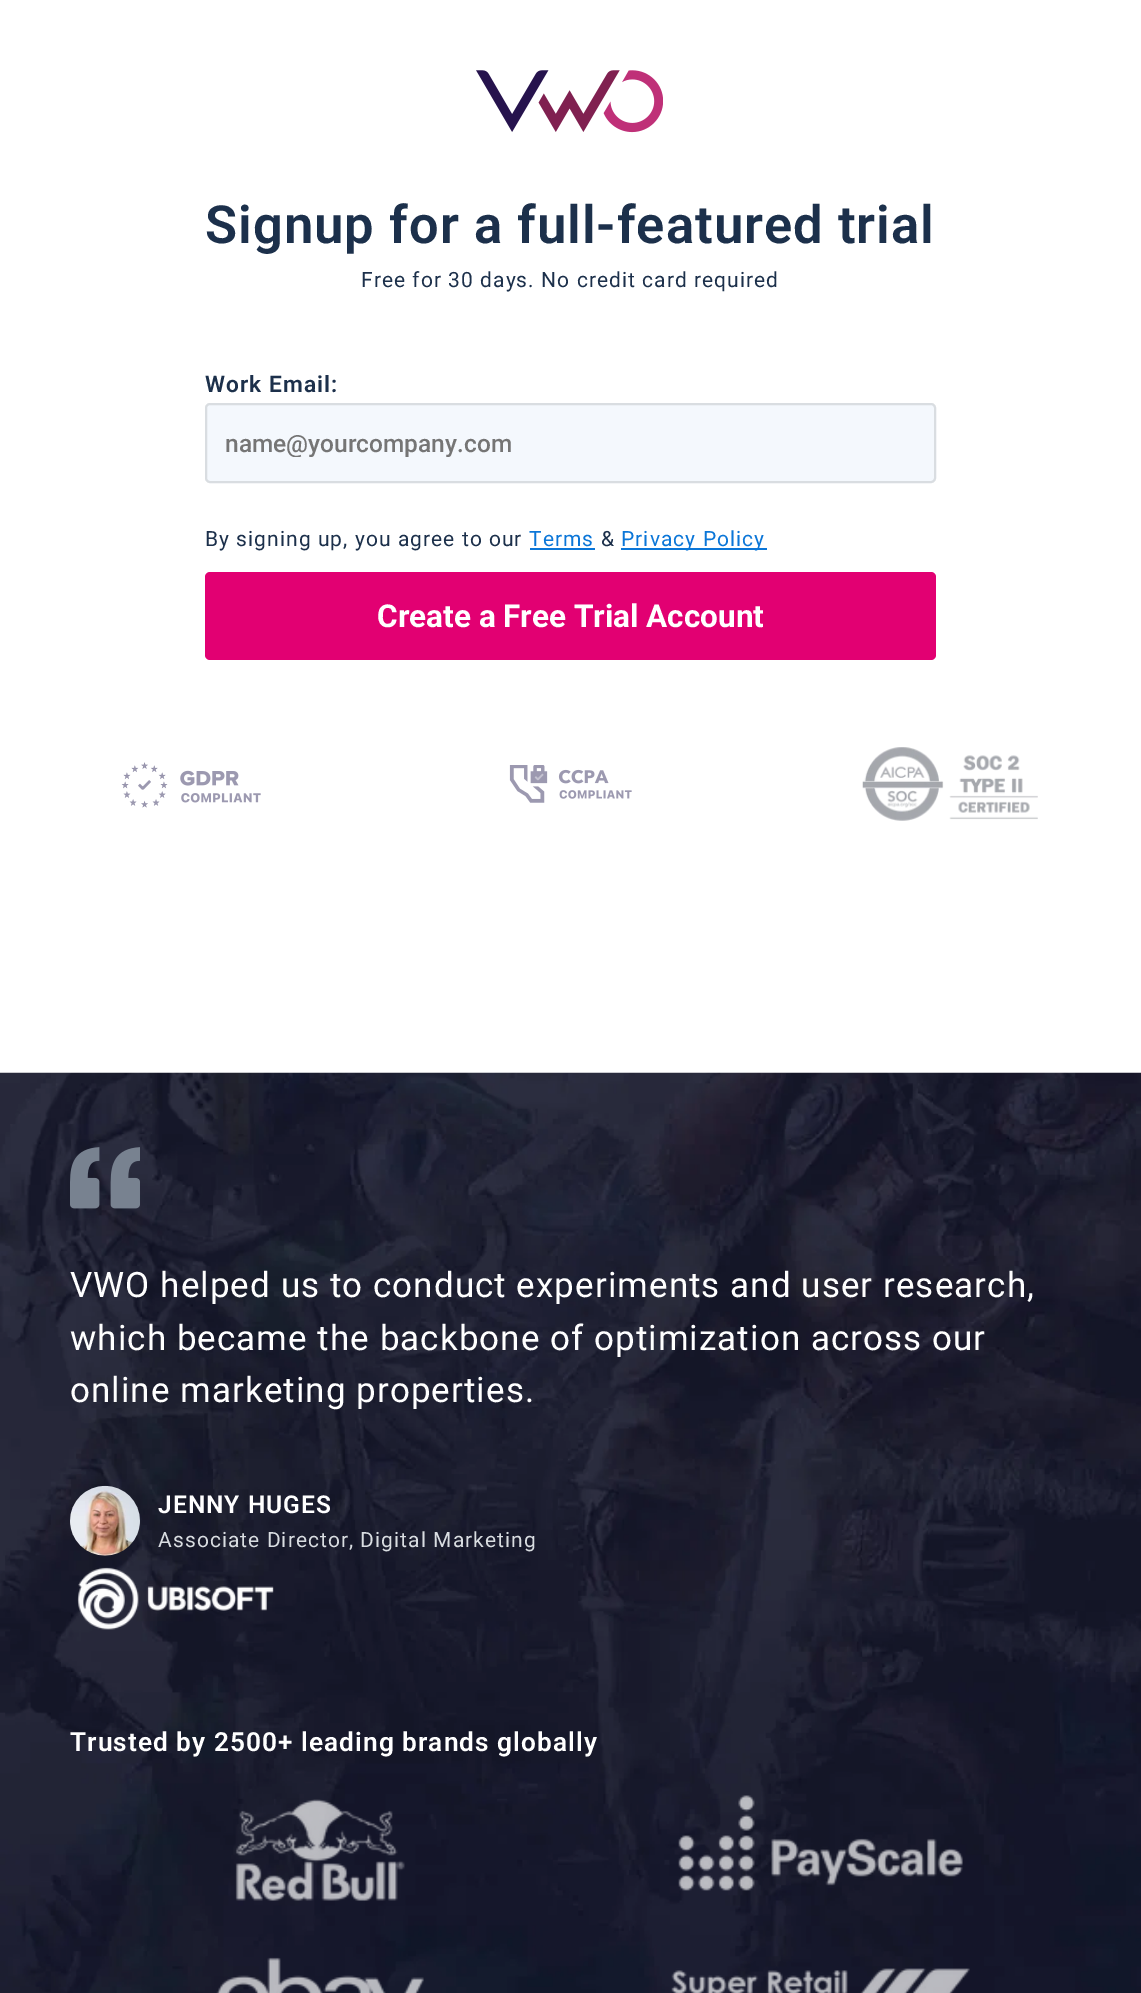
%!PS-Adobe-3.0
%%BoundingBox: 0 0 1141 1993
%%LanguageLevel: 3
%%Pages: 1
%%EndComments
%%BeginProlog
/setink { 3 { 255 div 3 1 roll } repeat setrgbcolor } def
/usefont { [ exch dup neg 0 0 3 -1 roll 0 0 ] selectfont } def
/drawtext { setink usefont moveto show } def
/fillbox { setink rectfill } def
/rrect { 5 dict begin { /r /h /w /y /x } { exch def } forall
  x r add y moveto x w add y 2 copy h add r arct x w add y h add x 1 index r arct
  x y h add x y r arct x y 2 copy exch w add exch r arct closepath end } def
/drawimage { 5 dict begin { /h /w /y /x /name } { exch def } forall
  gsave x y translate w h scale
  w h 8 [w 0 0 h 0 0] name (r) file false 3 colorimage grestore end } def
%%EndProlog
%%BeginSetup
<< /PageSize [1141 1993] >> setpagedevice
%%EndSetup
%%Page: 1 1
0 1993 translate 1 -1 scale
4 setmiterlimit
0 0 1141 1993 255 255 255 fillbox
(assets/img1.rgb) 476 70 187 63 drawimage
/Roboto-SemiBold 52.5 usefont
28 48 75 setink
205 243 moveto 1.05 0 (Signup for a full-featured trial) ashow
/Roboto-Regular 21 usefont
361 287 moveto 1.05 0 (Free for 30 days. No credit card required) ashow
/Roboto-SemiBold 22.75 usefont
205 392 moveto 1.05 0 (Work Email:) ashow
244 248 253 setink
206 404 729 78 4 rrect gsave fill grestore
217 221 225 setink
2 setlinewidth
stroke
gsave
224 429 693 28 rectclip
(name@yourcompany.com) 225 452 /Roboto-Medium 24.5 117 117 117 drawtext
grestore
/Roboto-Regular 21 usefont
28 48 75 setink
205 546 moveto 1.05 0 (By signing up, you agree to our) ashow
11 118 216 setink
529 546 moveto 1.05 0 (Terms) ashow
530 548 65 2 11 118 216 fillbox
28 48 75 setink
601 546 moveto 1.05 0 (&) ashow
621 548 146 2 11 118 216 fillbox
621 546 moveto 1.05 0 (Privacy Policy) ashow
226 0 114 setink
205 572 731 88 5 rrect fill
(Create a Free Trial Account) 377 627 /Roboto-Bold 31.5 255 255 255 drawtext
(assets/img2.rgb) 121 762 140 46 drawimage
(assets/img3.rgb) 509 765 123 38 drawimage
(assets/img4.rgb) 862 747 176 74 drawimage
(assets/img5.rgb) 0 1072 1141 921 drawimage
(assets/img6.rgb) 70 1147 70 62 drawimage
/Roboto-Regular 35 usefont
70 1297 moveto 1.05 0 (VWO helped us to conduct experiments and user research,) ashow
70 1350 moveto 1.05 0 (which became the backbone of optimization across our) ashow
70 1402 moveto 1.05 0 (online marketing properties.) ashow
(assets/img7.rgb) 70 1485 70 71 drawimage
/Roboto-SemiBold 24.5 usefont
158 1513 moveto 1.05 0 (JENNY HUGES) ashow
/Roboto-Regular 21 usefont
217 221 225 setink
158 1547 moveto 1.05 0 (Associate Director, Digital Marketing) ashow
(assets/img8.rgb) 77 1567 197 63 drawimage
/Roboto-SemiBold 26.25 usefont
255 255 255 setink
70 1751 moveto 1.05 0 (Trusted by 2500+ leading brands globally) ashow
(assets/img9.rgb) 235 1799 170 102 drawimage
(assets/img10.rgb) 678 1795 285 96 drawimage
(assets/img11.rgb) 216 1957 208 36 drawimage
(assets/img12.rgb) 671 1968 299 25 drawimage
showpage
%%EOF
